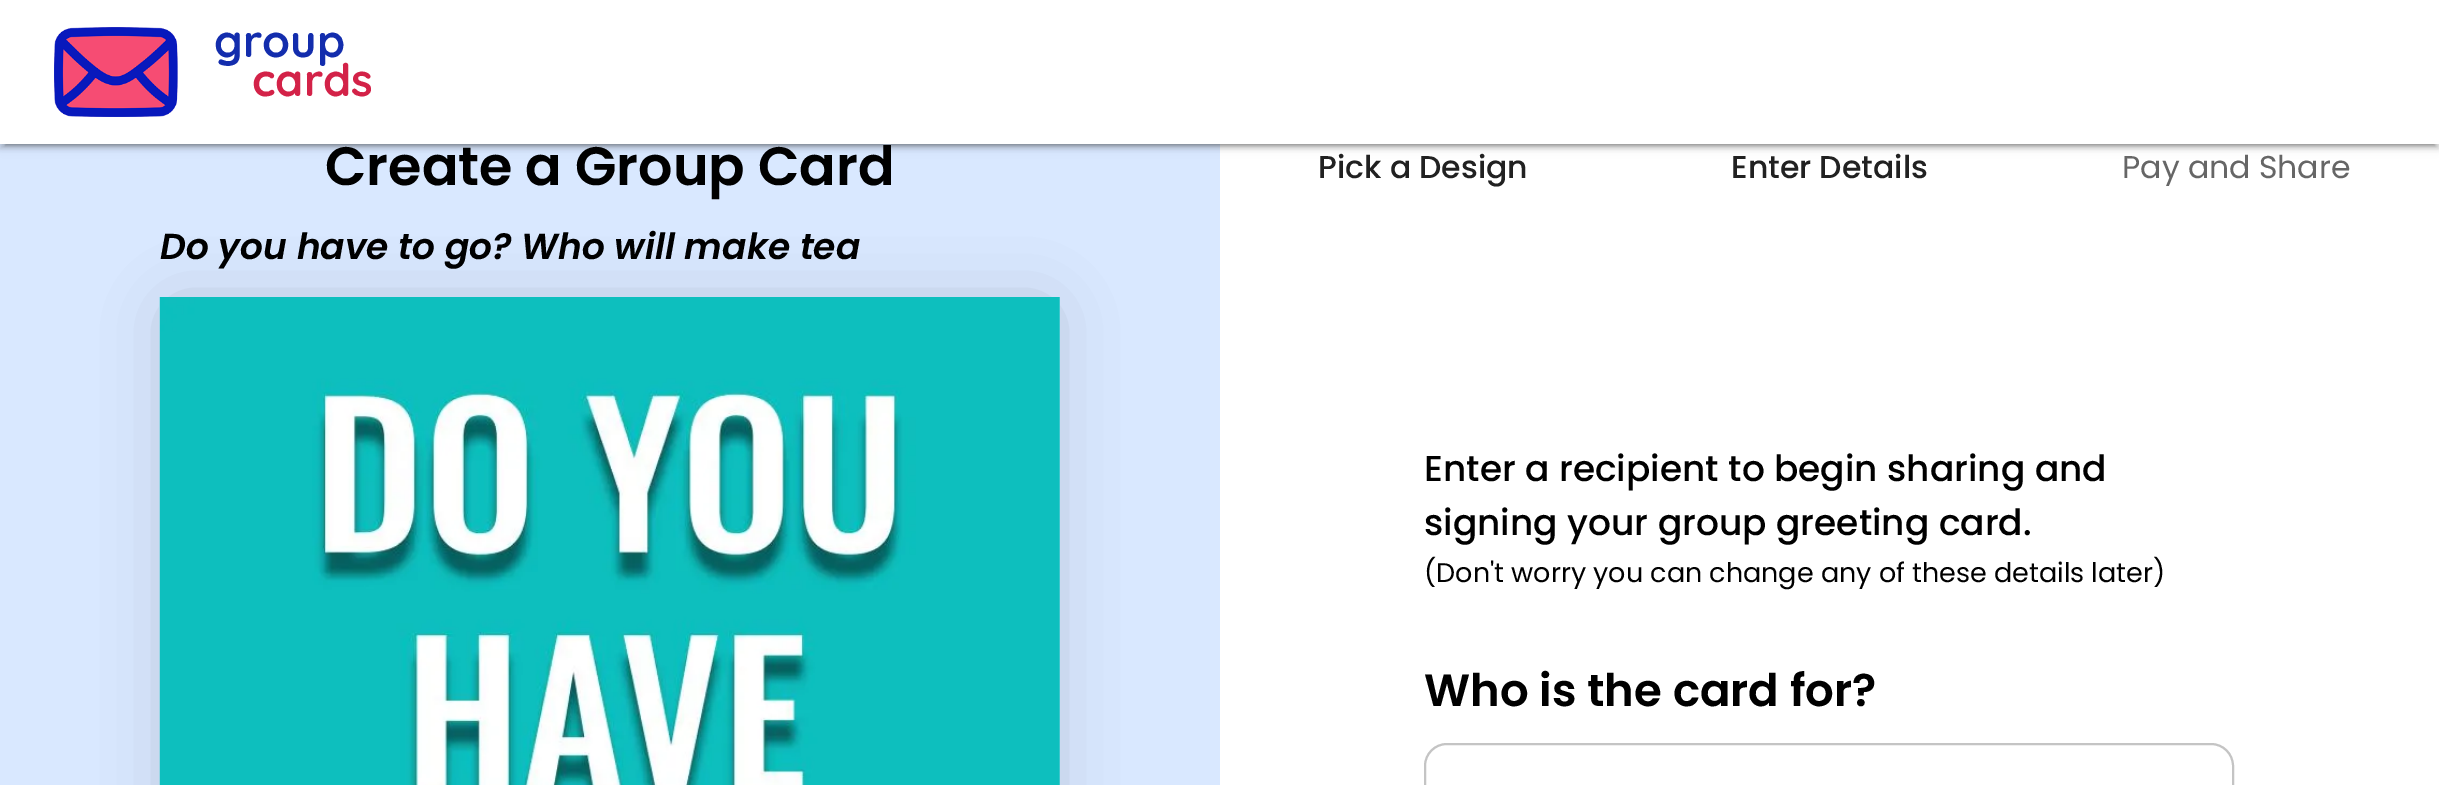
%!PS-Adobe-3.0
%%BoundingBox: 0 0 2439 785
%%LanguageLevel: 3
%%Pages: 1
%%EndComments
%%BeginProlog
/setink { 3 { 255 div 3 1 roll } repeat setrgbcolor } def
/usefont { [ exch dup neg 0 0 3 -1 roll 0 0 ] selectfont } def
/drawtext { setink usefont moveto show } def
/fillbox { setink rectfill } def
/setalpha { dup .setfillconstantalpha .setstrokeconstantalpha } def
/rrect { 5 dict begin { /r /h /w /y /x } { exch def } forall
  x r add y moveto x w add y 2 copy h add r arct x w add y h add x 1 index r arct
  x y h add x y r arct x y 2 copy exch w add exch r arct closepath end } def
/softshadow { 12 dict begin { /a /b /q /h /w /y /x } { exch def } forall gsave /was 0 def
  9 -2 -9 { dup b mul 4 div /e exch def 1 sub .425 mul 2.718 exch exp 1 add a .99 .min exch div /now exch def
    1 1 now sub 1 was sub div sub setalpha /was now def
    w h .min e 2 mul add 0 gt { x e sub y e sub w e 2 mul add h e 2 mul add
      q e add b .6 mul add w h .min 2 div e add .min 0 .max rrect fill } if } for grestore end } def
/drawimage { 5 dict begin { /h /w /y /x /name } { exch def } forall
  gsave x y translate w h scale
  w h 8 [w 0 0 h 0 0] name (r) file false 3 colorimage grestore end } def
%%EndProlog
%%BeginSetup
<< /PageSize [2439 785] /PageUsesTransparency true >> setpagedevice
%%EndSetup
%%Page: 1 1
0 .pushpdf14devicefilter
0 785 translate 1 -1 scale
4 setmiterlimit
0 0 2439 785 255 255 255 fillbox
0 144 1220 641 217 232 255 fillbox
0 0 0 setink
0 2 2439 144 0 5.5 0.12 softshadow
0 5 2439 144 0 2 0.14 softshadow
5 11 2430 135 0 1 0.2 softshadow
0 0 2439 144 255 255 255 fillbox
(assets/img1.rgb) 54 27 124 90 drawimage
(group) 214 57 /Quicksand-Bold 45 19 45 173 drawtext
(cards) 252 96 /Quicksand-Bold 45 211 34 72 drawtext
(Create a Group Card) 325 185 /Poppins-SemiBold 54 0 0 0 drawtext
176 313 868 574 0 34 0.2 softshadow
(assets/img2.rgb) 159 297 901 488 drawimage
(Do you have to go? Who will make tea) 160 259 /Poppins-SemiBoldItalic 36 0 0 0 drawtext
(Pick a Design) 1318 178 /Poppins-Medium 31.5 33 33 33 drawtext
(Enter Details) 1731 178 /Poppins-Medium 31.5 33 33 33 drawtext
(Pay and Share) 2122 178 /Poppins-Regular 31.5 102 102 102 drawtext
(Enter a recipient to begin sharing and) 1424 481 /Poppins-Medium 36 0 0 0 drawtext
(signing your group greeting card.) 1424 535 /Poppins-Medium 36 0 0 0 drawtext
(\(Don't worry you can change any of these details later\)) 1424 582 /Poppins-Regular 27 0 0 0 drawtext
(Who is the card for?) 1424 706 /Poppins-SemiBold 45 0 0 0 drawtext
196 196 196 setink
2 setlinewidth
1425 744 808 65 22 rrect stroke
.poppdf14devicefilter showpage
%%EOF
